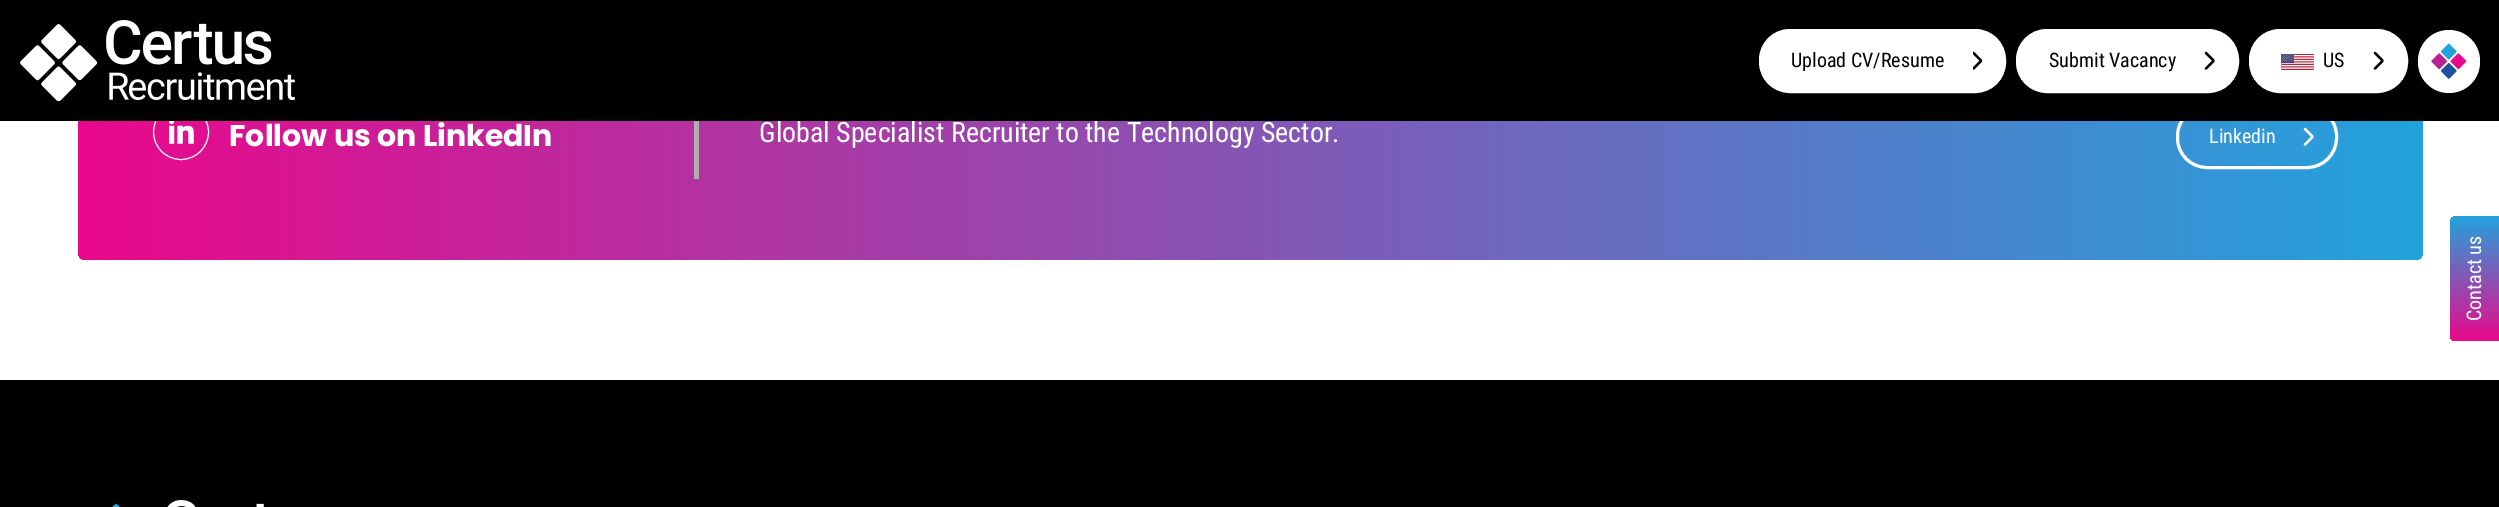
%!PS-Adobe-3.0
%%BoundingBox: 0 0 2499 507
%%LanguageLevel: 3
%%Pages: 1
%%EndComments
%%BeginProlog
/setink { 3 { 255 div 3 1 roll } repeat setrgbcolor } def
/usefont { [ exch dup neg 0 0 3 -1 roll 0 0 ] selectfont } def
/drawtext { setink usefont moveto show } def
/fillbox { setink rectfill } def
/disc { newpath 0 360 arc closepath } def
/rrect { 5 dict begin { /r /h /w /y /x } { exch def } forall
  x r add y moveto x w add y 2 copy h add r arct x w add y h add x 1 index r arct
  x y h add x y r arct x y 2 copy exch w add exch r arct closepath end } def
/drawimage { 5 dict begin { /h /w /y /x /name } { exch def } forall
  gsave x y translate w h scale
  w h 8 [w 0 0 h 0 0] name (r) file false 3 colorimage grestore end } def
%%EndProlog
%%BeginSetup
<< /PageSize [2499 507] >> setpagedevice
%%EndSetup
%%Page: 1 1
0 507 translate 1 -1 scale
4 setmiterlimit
0 0 2499 507 255 255 255 fillbox
gsave 78 24 2345 236 8 rrect clip newpath
<< /ShadingType 2 /ColorSpace /DeviceRGB /Coords [78 142 2423 142] /Extend [true true] /Function << /FunctionType 2 /Domain [0 1] /C0 [0.918 0.031 0.549] /C1 [0.133 0.639 0.867] /N 1 >> >> shfill grestore
181 132 27.5 disc stroke
3 setlinewidth
2177.5 106.5 159 61 29.5 rrect stroke
0 0 2499 121 0 0 0 fillbox
(assets/img1.rgb) 20 20 275 81 drawimage
255 255 255 setink
1760.5 30.5 244 61 29.5 rrect gsave fill grestore
stroke
(Upload CV/Resume) 1791 67 /RobotoCondensed-Regular 20 0 0 0 drawtext
gsave
1973 51 10 19 rectclip
2.2 setlinewidth
1 setlinecap
1973.5 68.5 moveto 1980.5 61.5 lineto 1981 61 1981 60.5 1980.5 60 curveto 1973.5 53 lineto stroke
grestore
255 255 255 setink
2017.5 30.5 220 61 29.5 rrect gsave fill grestore
stroke
(Submit Vacancy) 2049 67 /RobotoCondensed-Regular 20 0 0 0 drawtext
2.2 setlinewidth
1 setlinecap
2206 68.5 moveto 2213 61.5 lineto 2213.5 61 2213.5 60.5 2213 60 curveto 2206 53 lineto stroke
255 255 255 setink
2250.5 30.5 156 61 29.5 rrect gsave fill grestore
3 setlinewidth
0 setlinecap
stroke
(assets/img2.rgb) 2281 54 33 16 drawimage
(US) 2323 67 /RobotoCondensed-Regular 20 0 0 0 drawtext
2.2 setlinewidth
1 setlinecap
2375 68.5 moveto 2382 61.5 lineto 2382.5 61 2382.5 60.5 2382 60 curveto 2375 53 lineto stroke
255 255 255 setink
2418 30 62 63 31 rrect fill
(assets/img3.rgb) 2431 43 36 36 drawimage
(assets/img4.rgb) 169 121 25 23 drawimage
(Follow us on LinkedIn) 229 146 /Poppins-Bold 30 255 255 255 drawtext
694 121 5 58 175 175 175 fillbox
(Global Specialist Recruiter to the Technology Sector.) 759 142 /RobotoCondensed-Regular 28 255 255 255 drawtext
(Linkedin) 2209 143 /RobotoCondensed-Regular 20 255 255 255 drawtext
2305 144.5 moveto 2312 137.5 lineto 2312.5 137 2312.5 136.5 2312 136 curveto 2305 129 lineto stroke
gsave 2450 335 moveto 2450 222 lineto 2450 219 2453 216 2456 216 curveto 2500 216 lineto 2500 341 lineto 2456 341 lineto 2453 341 2450 339 2450 335 curveto closepath clip newpath
<< /ShadingType 2 /ColorSpace /DeviceRGB /Coords [2475 216 2475 341] /Extend [true true] /Function << /FunctionType 2 /Domain [0 1] /C0 [0.133 0.639 0.867] /C1 [0.918 0.031 0.549] /N 1 >> >> shfill grestore
gsave 2481 321 translate -90 rotate 0 0 moveto (Contact us) show grestore
0 380 2499 127 0 0 0 fillbox
(assets/img5.rgb) 112 500 152 7 drawimage
showpage
%%EOF
